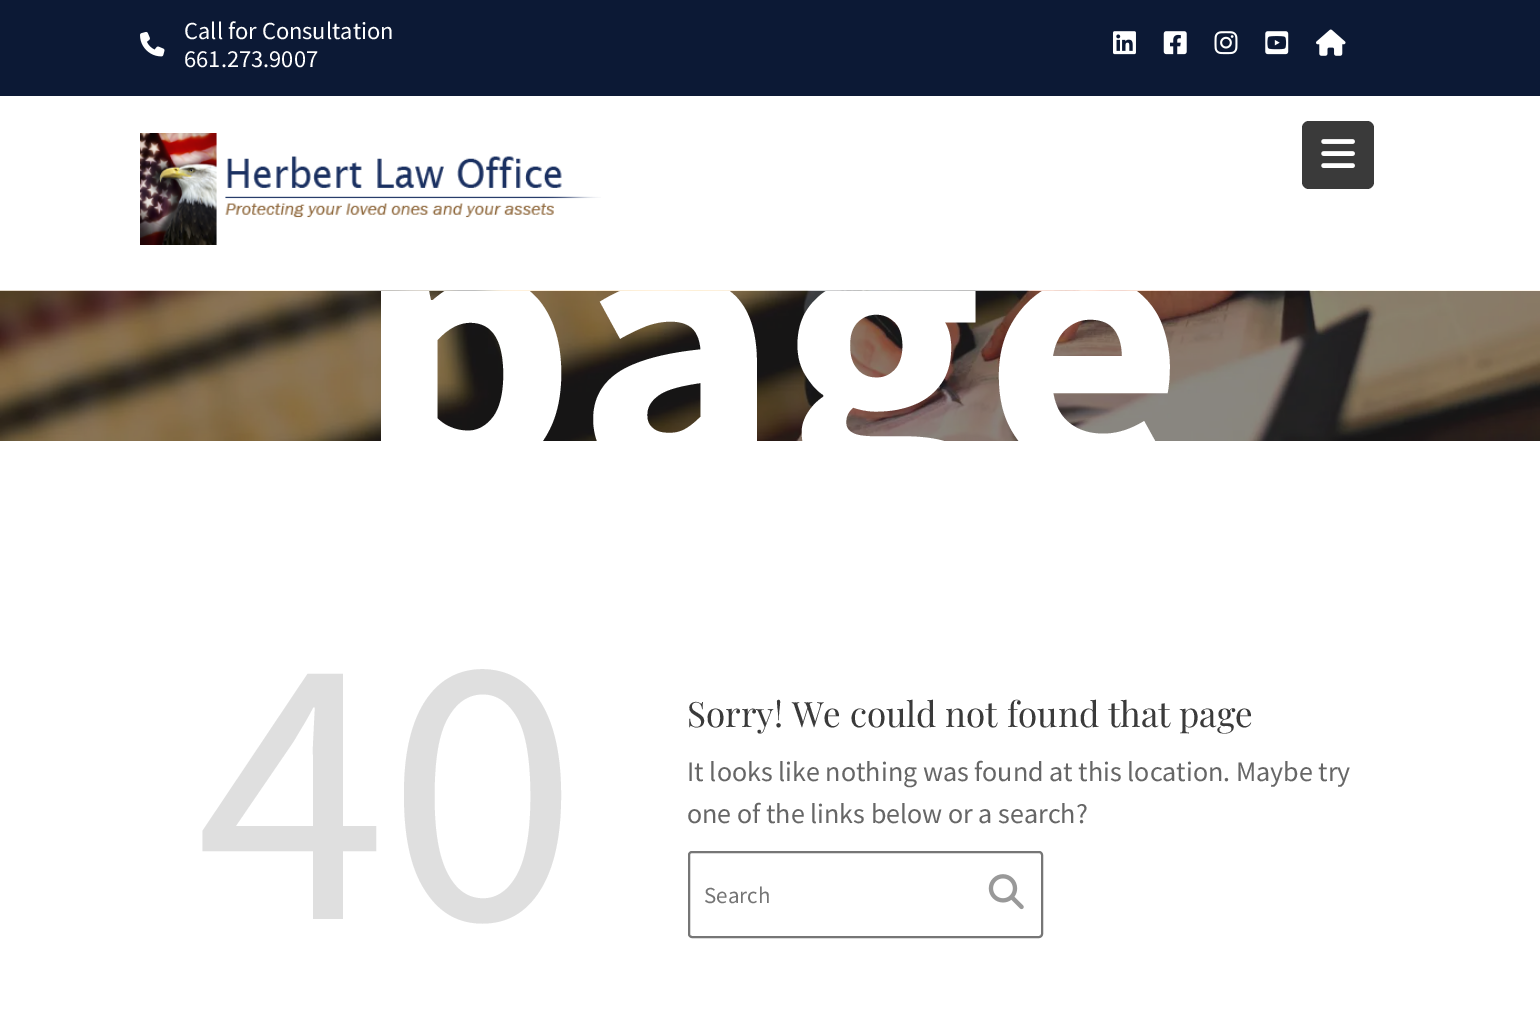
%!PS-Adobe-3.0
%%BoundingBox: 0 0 1540 1024
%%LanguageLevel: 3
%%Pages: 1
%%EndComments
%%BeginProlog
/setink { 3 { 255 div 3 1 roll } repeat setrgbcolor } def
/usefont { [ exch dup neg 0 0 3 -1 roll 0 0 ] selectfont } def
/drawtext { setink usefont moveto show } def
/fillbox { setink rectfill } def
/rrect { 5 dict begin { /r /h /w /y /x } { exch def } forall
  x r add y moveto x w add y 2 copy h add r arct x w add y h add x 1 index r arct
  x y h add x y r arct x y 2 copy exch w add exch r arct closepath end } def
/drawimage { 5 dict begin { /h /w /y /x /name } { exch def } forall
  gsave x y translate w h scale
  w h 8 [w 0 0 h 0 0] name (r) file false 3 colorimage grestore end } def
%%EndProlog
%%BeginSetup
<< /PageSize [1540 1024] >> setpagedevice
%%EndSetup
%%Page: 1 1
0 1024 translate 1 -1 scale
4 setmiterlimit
0 0 1540 1024 255 255 255 fillbox
0 0 1540 96 12 25 53 fillbox
(assets/img1.rgb) 140 31 25 26 drawimage
(Call for Consultation) 184 39 /SourceSansPro-Regular 24.5 255 255 255 drawtext
(661.273.9007) 184 67 /SourceSansPro-Regular 24.5 255 255 255 drawtext
(assets/img2.rgb) 1113 31 23 24 drawimage
(assets/img3.rgb) 1163 31 24 24 drawimage
(assets/img4.rgb) 1214 31 24 24 drawimage
(assets/img5.rgb) 1265 31 24 24 drawimage
(assets/img6.rgb) 1316 29 30 27 drawimage
(assets/img7.rgb) 140 133 461 112 drawimage
58 58 58 setink
1302 121 72 68 7 rrect fill
(assets/img8.rgb) 1321 139 34 29 drawimage
(assets/img9.rgb) 0 290 1540 151 drawimage
gsave
0 291 1540 150 rectclip
(page) 356 472 /SourceSansPro-Bold 385 255 255 255 drawtext
grestore
(40) 196 919 /SourceSansPro-Regular 385 223 223 223 drawtext
(Sorry! We could not found that page) 687 727 /PlayfairDisplay-Regular 35 58 58 58 drawtext
(It looks like nothing was found at this location. Maybe try) 687 781 /SourceSansPro-Regular 28 102 102 102 drawtext
(one of the links below or a search?) 687 823 /SourceSansPro-Regular 28 102 102 102 drawtext
118 118 118 setink
2 setlinewidth
689 852 353 85 3 rrect stroke
(Search) 704 903 /SourceSansPro-Regular 23 117 117 117 drawtext
(assets/img10.rgb) 988 874 36 36 drawimage
showpage
%%EOF
